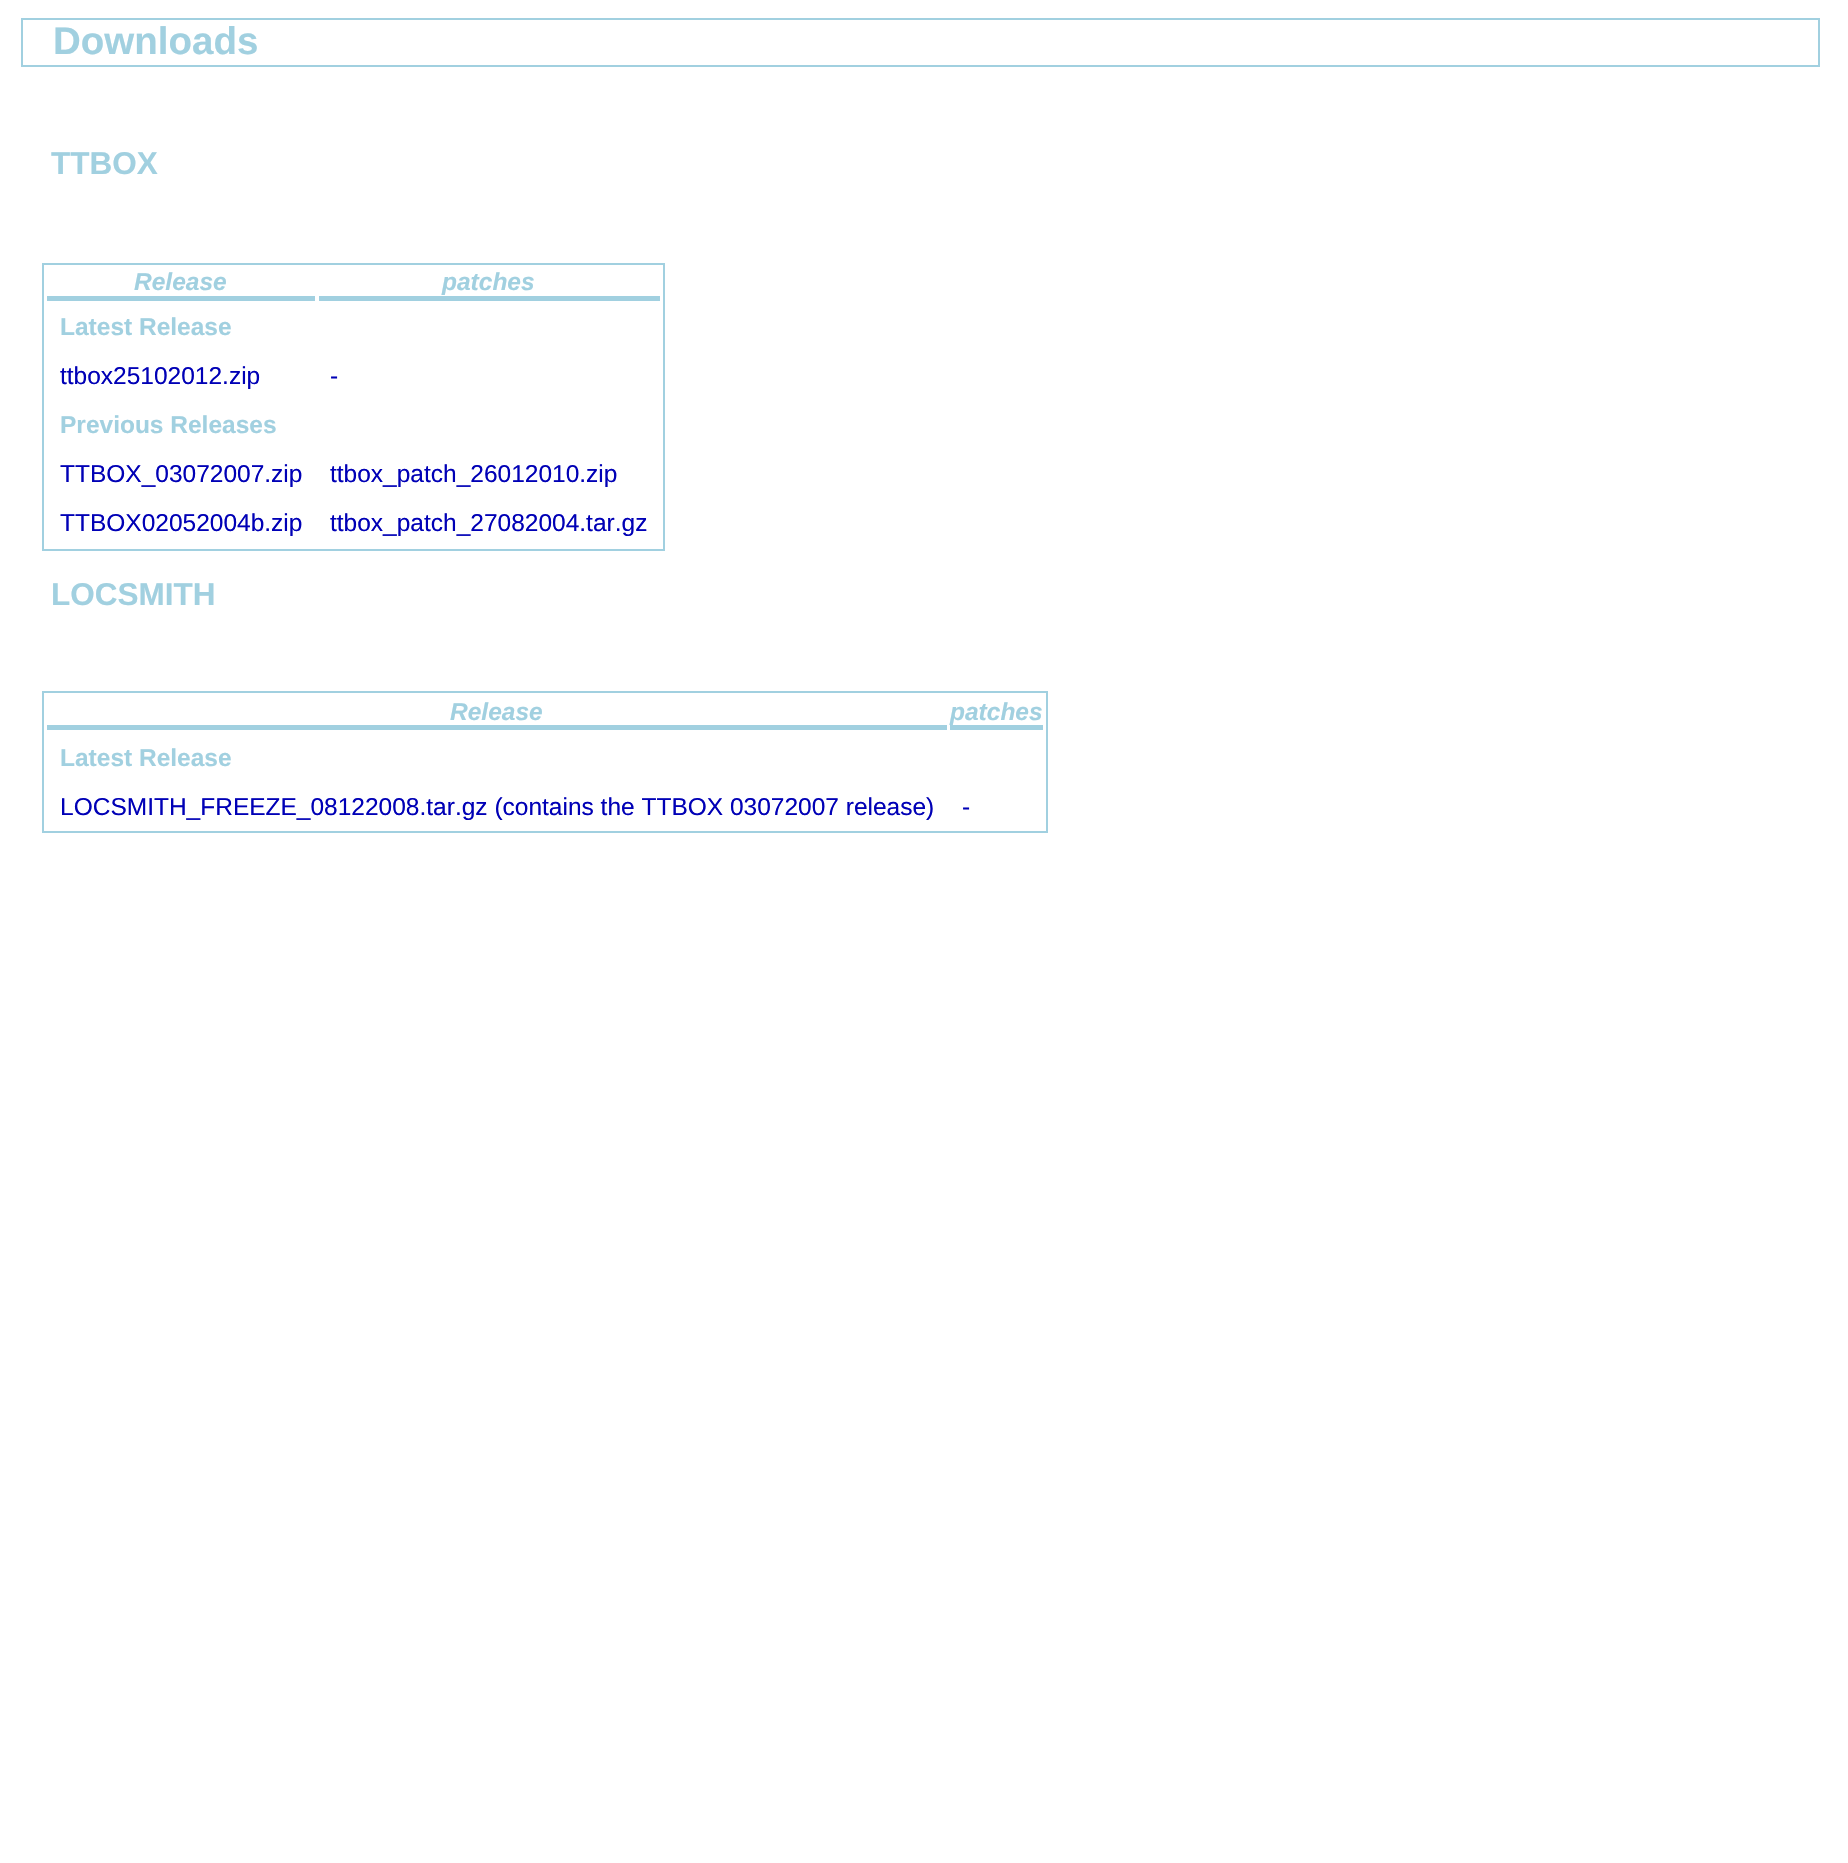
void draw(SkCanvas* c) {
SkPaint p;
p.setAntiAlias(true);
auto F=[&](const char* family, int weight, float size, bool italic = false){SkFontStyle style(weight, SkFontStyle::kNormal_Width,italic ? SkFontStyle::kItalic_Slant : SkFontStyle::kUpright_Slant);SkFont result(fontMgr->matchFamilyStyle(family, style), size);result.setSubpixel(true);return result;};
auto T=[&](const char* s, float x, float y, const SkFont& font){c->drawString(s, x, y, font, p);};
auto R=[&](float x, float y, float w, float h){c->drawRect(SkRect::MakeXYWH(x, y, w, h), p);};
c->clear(0xffffffff);
p.setStroke(true);
p.setStrokeWidth(2);
p.setColor(0xffa1d0e0);
c->drawRect(SkRect::MakeXYWH(22,19,1797,47),p);
auto f1 = F("Liberation Sans",700,38.5);
p.setStroke(false);
T("Downloads",53,54,f1);
auto f2 = F("Liberation Sans",700,31.5);
T("TTBOX",51,174,f2);
p.setStroke(true);
c->drawRect(SkRect::MakeXYWH(43,264,621,286),p);
p.setStroke(false);
R(47,296,268,5);
auto f3 = F("Liberation Sans",700,24.5,true);
T("Release",134,290,f3);
R(319,296,341,5);
T("patches",442,290,f3);
auto f4 = F("Liberation Sans",700,24.5);
T("Latest Release",60,335,f4);
auto f5 = F("Liberation Sans",400,24.5);
p.setColor(0xff0000b6);
T("ttbox25102012.zip",60,384,f5);
T("-",330,384,f5);
p.setColor(0xffa1d0e0);
T("Previous Releases",60,433,f4);
p.setColor(0xff0000b6);
T("TTBOX_03072007.zip",60,482,f5);
T("ttbox_patch_26012010.zip",330,482,f5);
T("TTBOX02052004b.zip",60,531,f5);
T("ttbox_patch_27082004.tar.gz",330,531,f5);
p.setColor(0xffa1d0e0);
T("LOCSMITH",51,605,f2);
p.setStroke(true);
c->drawRect(SkRect::MakeXYWH(43,692,1004,140),p);
p.setStroke(false);
R(47,725,900,5);
T("Release",450,720,f3);
R(950,725,93,5);
T("patches",950,720,f3);
T("Latest Release",60,766,f4);
p.setColor(0xff0000b6);
T("LOCSMITH_FREEZE_08122008.tar.gz (contains the TTBOX 03072007 release)",60,815,f5);
T("-",962,815,f5);
}
